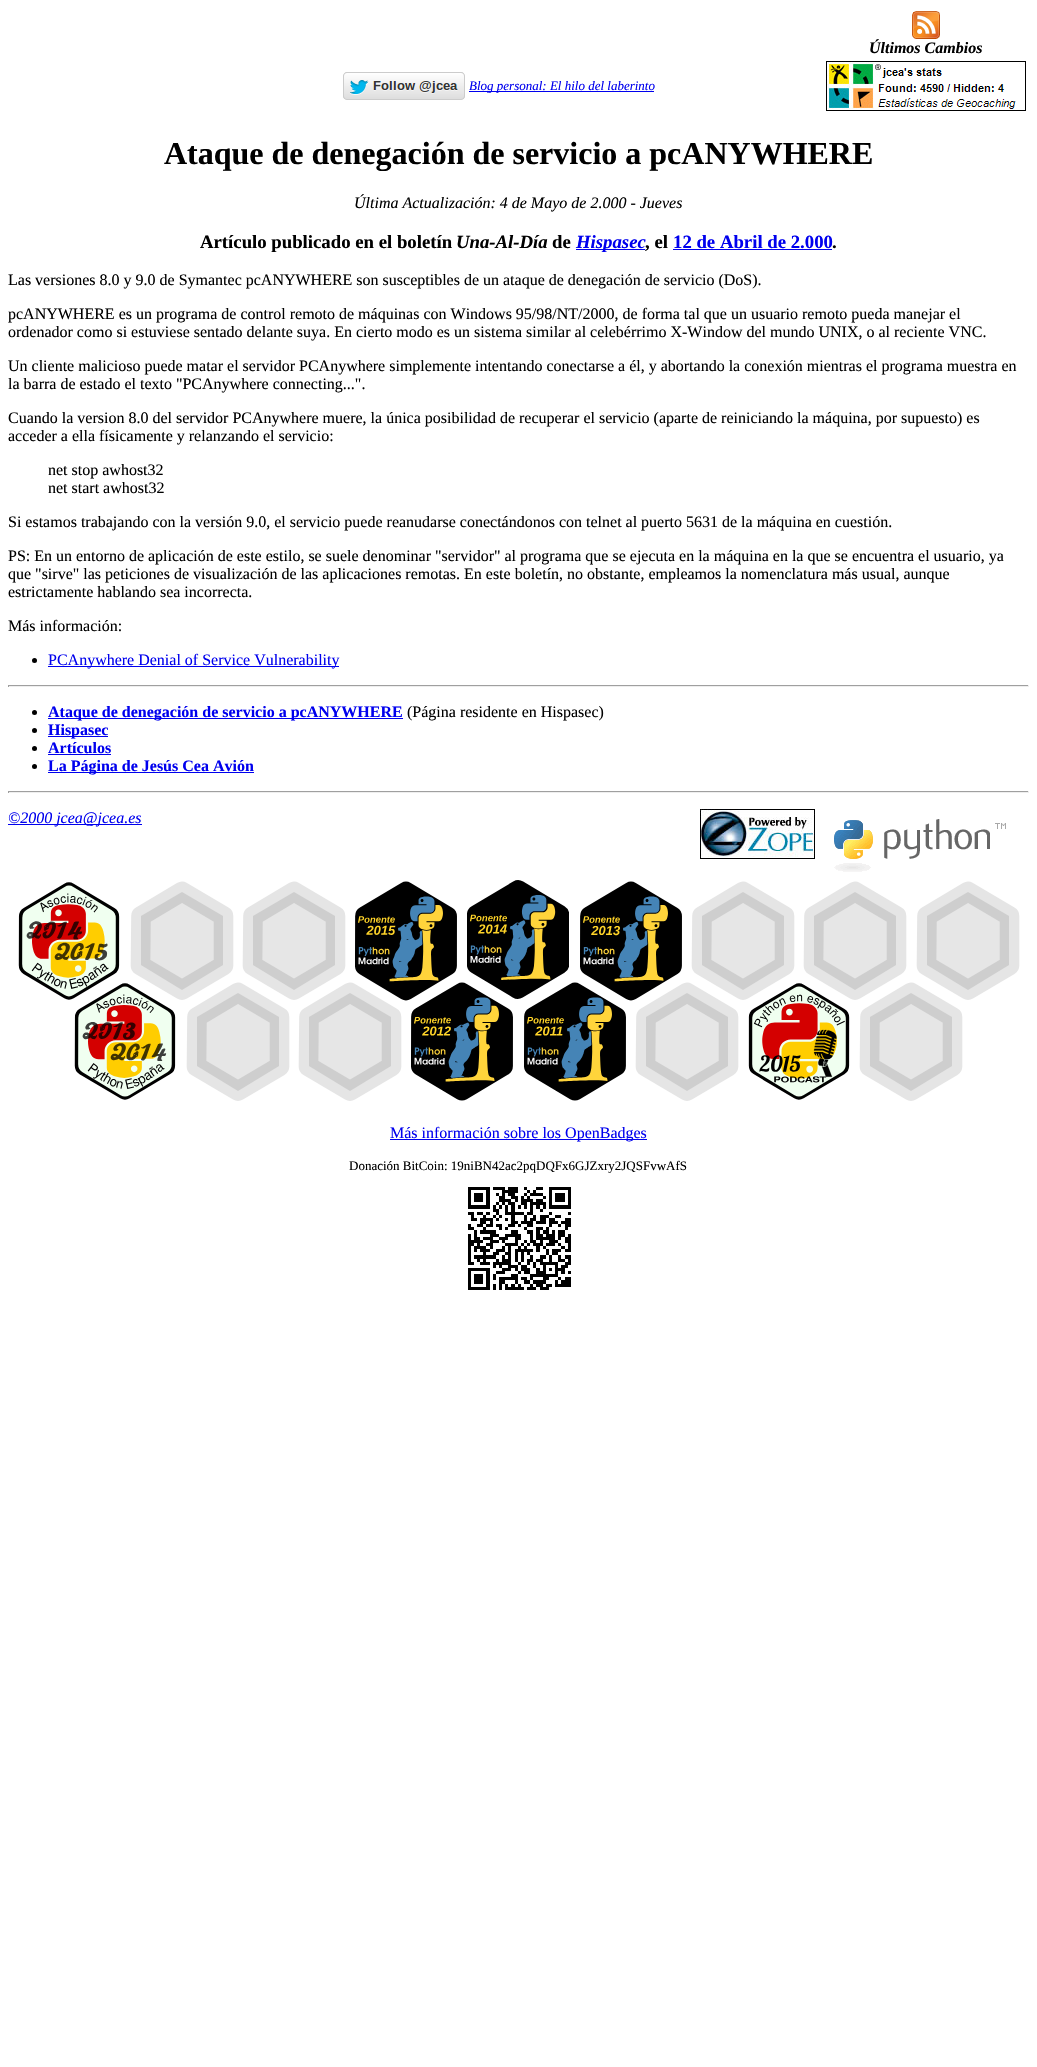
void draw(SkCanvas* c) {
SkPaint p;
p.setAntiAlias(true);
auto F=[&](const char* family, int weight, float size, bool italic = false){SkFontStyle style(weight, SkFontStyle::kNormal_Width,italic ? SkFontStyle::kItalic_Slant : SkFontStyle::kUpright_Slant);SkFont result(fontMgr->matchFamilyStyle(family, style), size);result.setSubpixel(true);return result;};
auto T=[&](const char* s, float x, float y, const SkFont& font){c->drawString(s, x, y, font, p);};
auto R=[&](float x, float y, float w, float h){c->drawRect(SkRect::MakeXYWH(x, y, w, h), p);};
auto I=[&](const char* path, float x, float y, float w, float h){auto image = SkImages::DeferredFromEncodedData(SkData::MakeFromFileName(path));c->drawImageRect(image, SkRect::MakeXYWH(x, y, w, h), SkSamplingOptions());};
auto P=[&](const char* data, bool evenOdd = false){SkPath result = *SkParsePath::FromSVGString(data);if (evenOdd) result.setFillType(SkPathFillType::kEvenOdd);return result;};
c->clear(0xffffffff);
I("1.png",912,11,28,28);
auto f1 = F("Liberation Serif",700,16,true);
p.setColor(0xff000000);
T("Últimos Cambios",869,53,f1);
I("2.png",343,72,122,28);
p.setColor(0xff0000ee);
R(469,91,185,1);
auto f2 = F("Liberation Serif",400,13,true);
T("Blog personal: El hilo del laberinto",469,90,f2);
I("3.png",826,61,200,50);
auto f3 = F("Liberation Serif",700,32);
p.setColor(0xff000000);
T("Ataque de denegación de servicio a pcANYWHERE",164,164,f3);
auto f4 = F("Liberation Serif",400,16,true);
T("Última Actualización: 4 de Mayo de 2.000 - Jueves",354,208,f4);
auto f5 = F("Liberation Serif",700,18.75);
T("Artículo publicado en el boletín",200,248,f5);
auto f6 = F("Liberation Serif",700,18.75,true);
T("Una-Al-Día",456,248,f6);
T("de",552,248,f5);
p.setColor(0xff0000ee);
R(576,249,69,1);
T("Hispasec",576,248,f6);
p.setColor(0xff000000);
T(", el",645,248,f5);
p.setColor(0xff0000ee);
T("12 de Abril de 2.000",673,248,f5);
R(673,249,159,1);
p.setColor(0xff000000);
T(".",832,248,f5);
auto f7 = F("Liberation Serif",400,16);
T("Las versiones 8.0 y 9.0 de Symantec pcANYWHERE son susceptibles de un ataque de denegación de servicio (DoS).",8,285,f7);
T("pcANYWHERE es un programa de control remoto de máquinas con Windows 95/98/NT/2000, de forma tal que un usuario remoto pueda manejar el",8,319,f7);
T("ordenador como si estuviese sentado delante suya. En cierto modo es un sistema similar al celebérrimo X-Window del mundo UNIX, o al reciente VNC.",8,337,f7);
T("Un cliente malicioso puede matar el servidor PCAnywhere simplemente intentando conectarse a él, y abortando la conexión mientras el programa muestra en",8,371,f7);
T("la barra de estado el texto \"PCAnywhere connecting...\".",8,389,f7);
T("Cuando la version 8.0 del servidor PCAnywhere muere, la única posibilidad de recuperar el servicio (aparte de reiniciando la máquina, por supuesto) es",8,423,f7);
T("acceder a ella físicamente y relanzando el servicio:",8,441,f7);
T("net stop awhost32",48,475,f7);
T("net start awhost32",48,493,f7);
T("Si estamos trabajando con la versión 9.0, el servicio puede reanudarse conectándonos con telnet al puerto 5631 de la máquina en cuestión.",8,527,f7);
T("PS: En un entorno de aplicación de este estilo, se suele denominar \"servidor\" al programa que se ejecuta en la máquina en la que se encuentra el usuario, ya",8,561,f7);
T("que \"sirve\" las peticiones de visualización de las aplicaciones remotas. En este boletín, no obstante, empleamos la nomenclatura más usual, aunque",8,579,f7);
T("estrictamente hablando sea incorrecta.",8,597,f7);
T("Más información:",8,631,f7);
c->drawCircle(34.5,660.5,2.5,p);
p.setColor(0xff0000ee);
R(48,666,291,1);
T("PCAnywhere Denial of Service Vulnerability",48,665,f7);
p.setColor(0xff9f9f9f);
R(8,685,1021,1);
p.setColor(0xffeeeeee);
R(1028,685,1,2);
R(8,686,1021,1);
p.setColor(0xff9f9f9f);
R(8,685,1,2);
p.setColor(0xff000000);
c->drawCircle(34.5,712.5,2.5,p);
p.setColor(0xff0000ee);
R(48,718,355,1);
auto f8 = F("Liberation Serif",700,16);
T("Ataque de denegación de servicio a pcANYWHERE",48,717,f8);
p.setColor(0xff000000);
T("(Página residente en Hispasec)",407,717,f7);
c->drawCircle(34.5,730.5,2.5,p);
p.setColor(0xff0000ee);
R(48,736,60,1);
T("Hispasec",48,735,f8);
p.setColor(0xff000000);
c->drawCircle(34.5,748.5,2.5,p);
p.setColor(0xff0000ee);
T("Artículos",48,753,f8);
R(48,754,63,1);
p.setColor(0xff000000);
c->drawCircle(34.5,766.5,2.5,p);
p.setColor(0xff0000ee);
R(48,772,206,1);
T("La Página de Jesús Cea Avión",48,771,f8);
p.setColor(0xff9f9f9f);
R(8,791,1021,1);
p.setColor(0xffeeeeee);
R(1028,791,1,2);
R(8,792,1021,1);
p.setColor(0xff9f9f9f);
R(8,791,1,2);
p.setColor(0xff0000ee);
R(8,824,134,1);
T("©2000 jcea@jcea.es",8,823,f4);
I("4.png",700,809,115,50);
I("5.png",834,819,172,53);
I("6.png",18,882,102,118);
p.setColor(0xffe6e6e6);
c->drawPath(P("M141 916l41-24l41 24v49l-41 25l-41-25z"),p);
p.setStroke(true);
p.setStrokeWidth(19.6);
p.setStrokeCap(SkPaint::kRound_Cap);
p.setStrokeJoin(SkPaint::kRound_Join);
p.setColor(0x1a000000);
c->drawPath(P("M141 916l41-24.5l41.5 24.5v49.5l-41.5 24.5l-41.5-24.5z"),p);
p.setStroke(false);
p.setColor(0xffe6e6e6);
c->drawPath(P("M253 916l41-24l41 24v49l-41 25l-41-25z"),p);
p.setStroke(true);
p.setColor(0x1a000000);
c->drawPath(P("M253 916l41-24.5l41.5 24.5v49.5l-41.5 24.5l-41.5-24.5z"),p);
I("7.png",355,881,102,120);
I("8.png",467,880,102,119);
I("9.png",580,881,102,120);
p.setStroke(false);
p.setColor(0xffe6e6e6);
c->drawPath(P("M702 916l41-24l41 24v49l-41 25l-41-25z"),p);
p.setStroke(true);
p.setColor(0x1a000000);
c->drawPath(P("M702 916l41-24.5l41.5 24.5v49.5l-41.5 24.5l-41.5-24.5z"),p);
p.setStroke(false);
p.setColor(0xffe6e6e6);
c->drawPath(P("M814 916l41-24l41 24v49l-41 25l-41-25z"),p);
p.setStroke(true);
p.setColor(0x1a000000);
c->drawPath(P("M814 916l41-24.5l41.5 24.5v49.5l-41.5 24.5l-41.5-24.5z"),p);
p.setStroke(false);
p.setColor(0xffe6e6e6);
c->drawPath(P("M927 916l41-24l41 24v49l-41 25l-41-25z"),p);
p.setStroke(true);
p.setColor(0x1a000000);
c->drawPath(P("M927 916l41-24.5l41.5 24.5v49.5l-41.5 24.5l-41.5-24.5z"),p);
I("10.png",74,983,102,117);
p.setStroke(false);
p.setColor(0xffe6e6e6);
c->drawPath(P("M197 1017l41-24l41 24v49l-41 25l-41-25z"),p);
p.setStroke(true);
p.setColor(0x1a000000);
c->drawPath(P("M197 1017l41-24.5l41.5 24.5v49.5l-41.5 24.5l-41.5-24.5z"),p);
p.setStroke(false);
p.setColor(0xffe6e6e6);
c->drawPath(P("M309 1017l41-24l41 24v49l-41 25l-41-25z"),p);
p.setStroke(true);
p.setColor(0x1a000000);
c->drawPath(P("M309 1017l41-24.5l41.5 24.5v49.5l-41.5 24.5l-41.5-24.5z"),p);
I("11.png",411,982,102,119);
I("12.png",524,982,102,119);
p.setStroke(false);
p.setColor(0xffe6e6e6);
c->drawPath(P("M646 1017l41-24l41 24v49l-41 25l-41-25z"),p);
p.setStroke(true);
p.setColor(0x1a000000);
c->drawPath(P("M646 1017l41-24.5l41.5 24.5v49.5l-41.5 24.5l-41.5-24.5z"),p);
I("13.png",748,983,102,117);
p.setStroke(false);
p.setColor(0xffe6e6e6);
c->drawPath(P("M870 1017l41-24l41 24v49l-41 25l-41-25z"),p);
p.setStroke(true);
p.setColor(0x1a000000);
c->drawPath(P("M870 1017l41-24.5l41.5 24.5v49.5l-41.5 24.5l-41.5-24.5z"),p);
p.setStroke(false);
p.setColor(0xff0000ee);
R(390,1139,257,1);
T("Más información sobre los OpenBadges",390,1138,f7);
auto f9 = F("Liberation Serif",400,13);
p.setColor(0xff000000);
T("Donación BitCoin: 19niBN42ac2pqDQFx6GJZxry2JQSFvwAfS",349,1170,f9);
I("14.png",468,1187,103,103);
}
